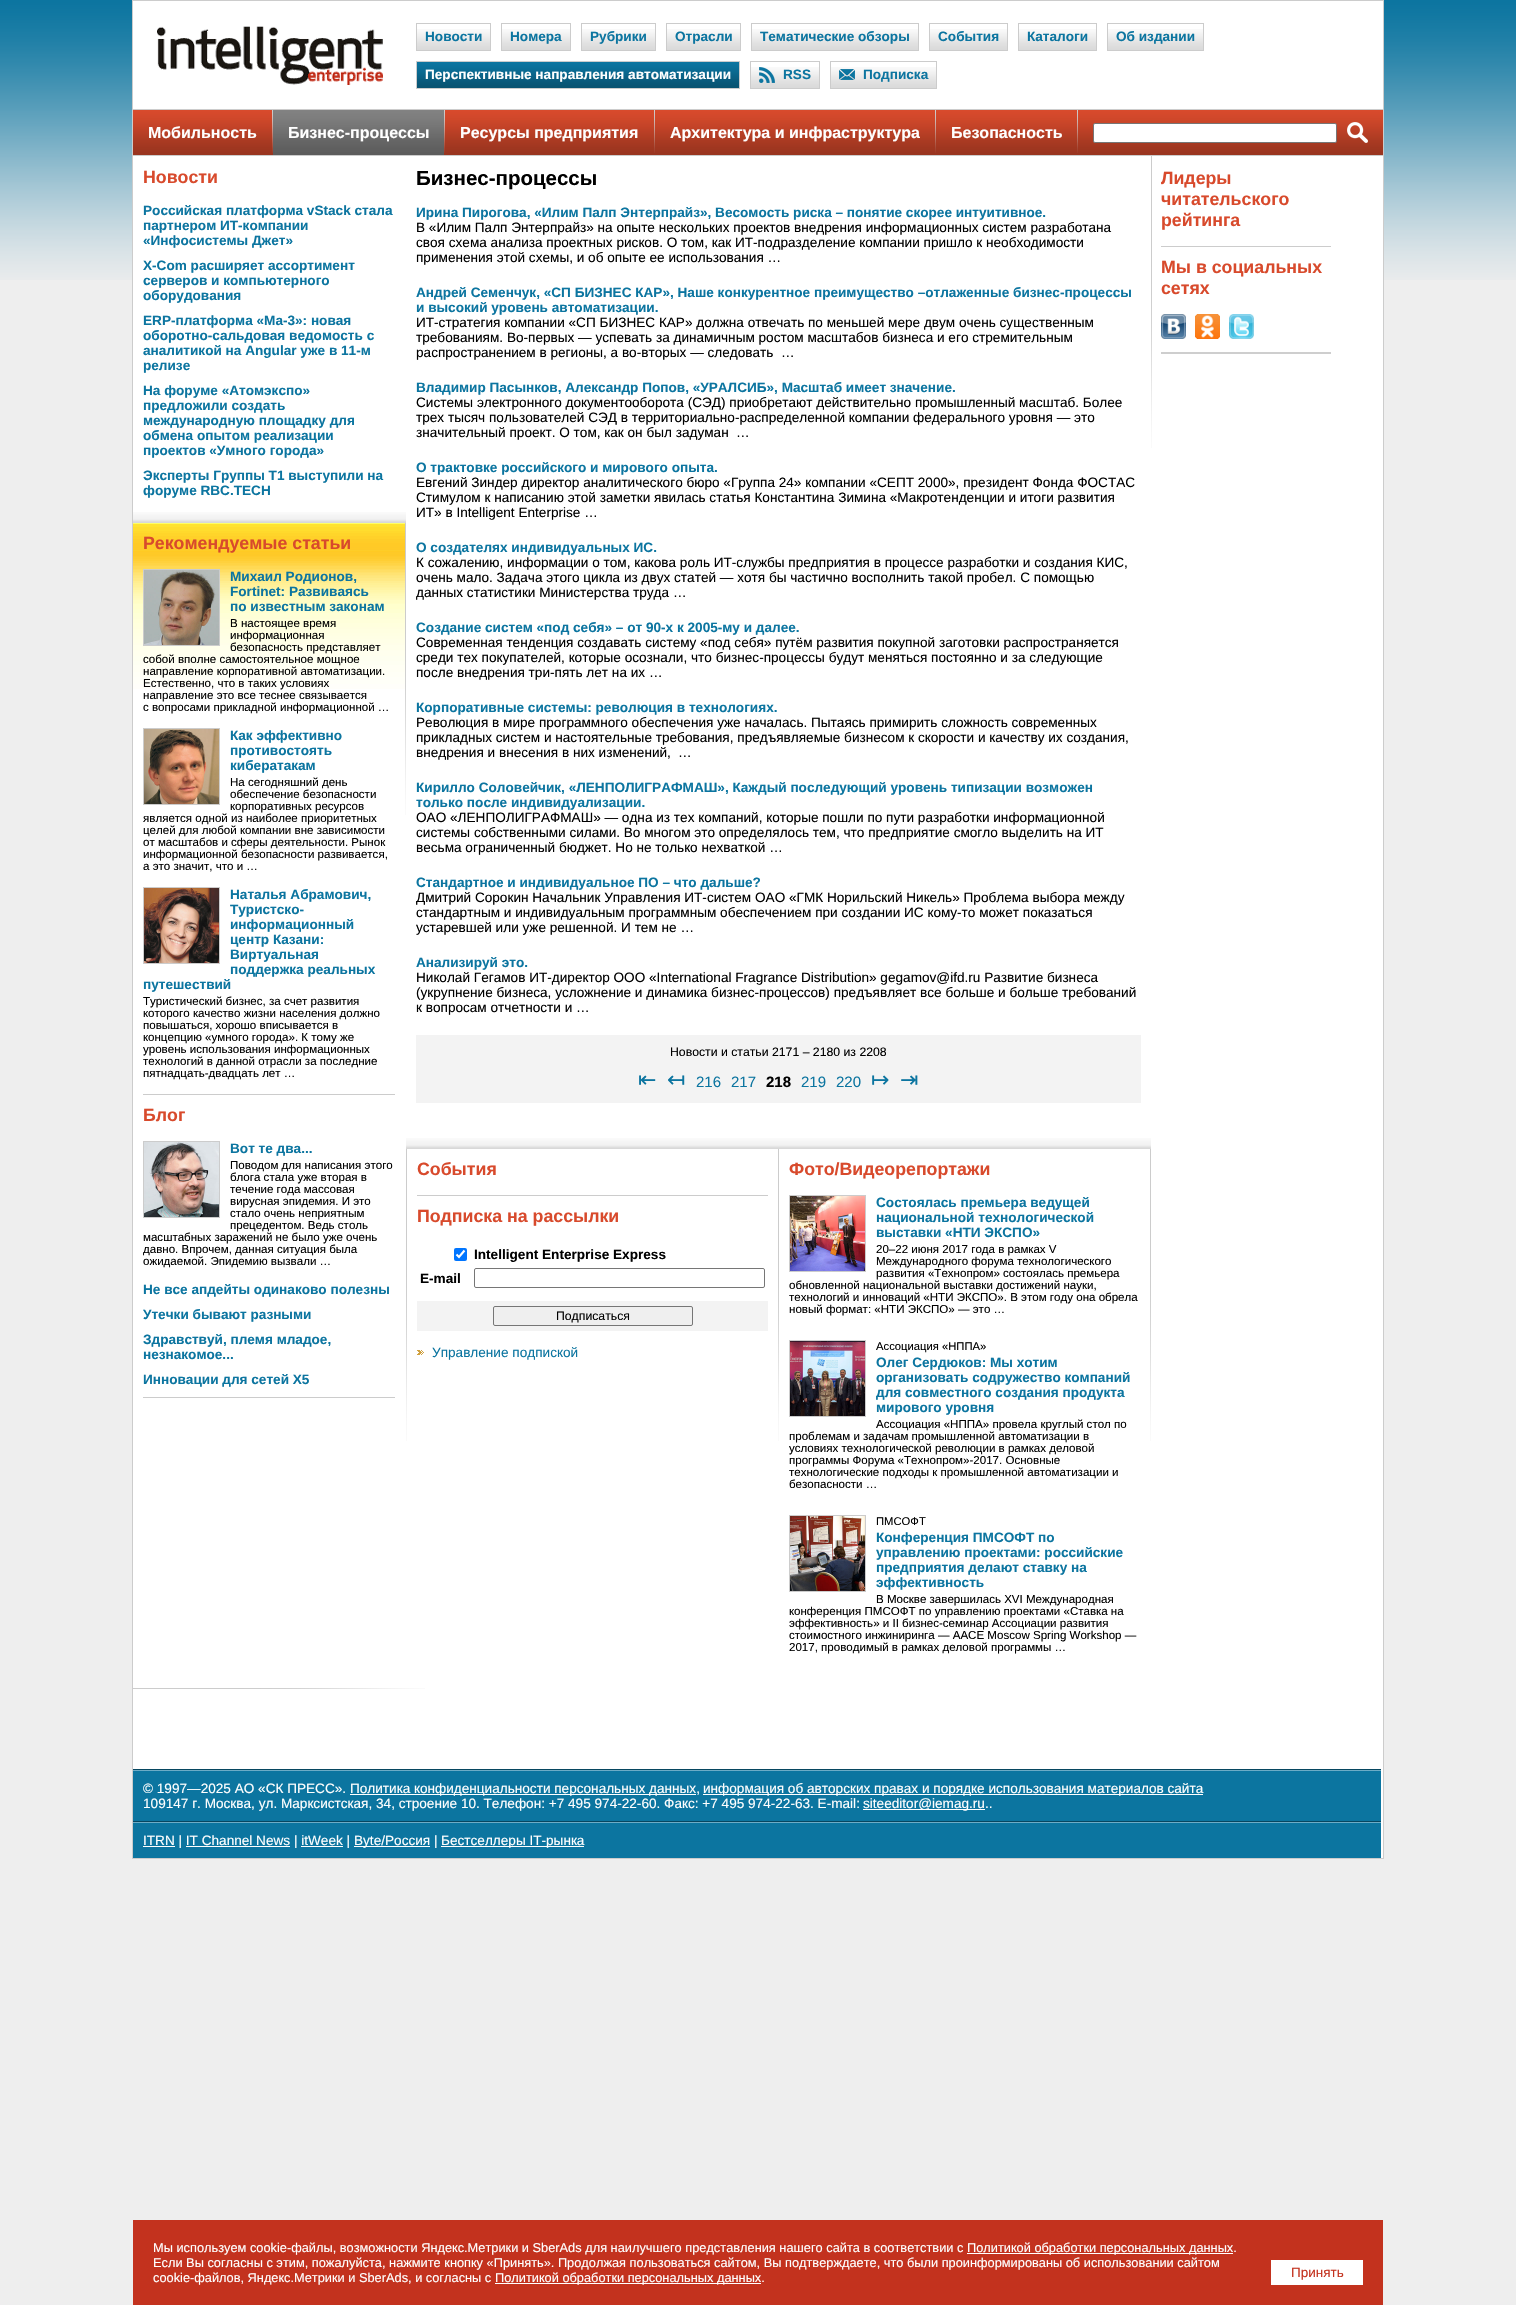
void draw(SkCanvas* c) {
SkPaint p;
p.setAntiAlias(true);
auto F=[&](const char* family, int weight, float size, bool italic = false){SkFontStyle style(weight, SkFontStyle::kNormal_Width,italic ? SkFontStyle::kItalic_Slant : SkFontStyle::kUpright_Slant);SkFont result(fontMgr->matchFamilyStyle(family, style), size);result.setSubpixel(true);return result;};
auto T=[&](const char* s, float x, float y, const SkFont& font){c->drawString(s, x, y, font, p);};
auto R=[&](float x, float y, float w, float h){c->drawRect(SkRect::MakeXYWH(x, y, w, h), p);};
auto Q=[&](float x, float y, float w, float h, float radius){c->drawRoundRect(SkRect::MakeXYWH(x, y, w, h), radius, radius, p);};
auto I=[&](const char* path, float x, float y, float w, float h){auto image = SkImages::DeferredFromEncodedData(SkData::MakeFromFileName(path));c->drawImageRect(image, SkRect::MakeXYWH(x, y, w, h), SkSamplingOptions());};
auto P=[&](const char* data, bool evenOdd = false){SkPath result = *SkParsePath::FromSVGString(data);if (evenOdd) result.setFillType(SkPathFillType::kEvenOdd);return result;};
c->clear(0xffeeeeee);
I("1.png",0,0,1516,280);
p.setColor(0xffffffff);
c->drawRect(SkRect::MakeXYWH(132.5,.5,1251,1858),p);
p.setStroke(true);
p.setStrokeWidth(1);
p.setColor(0xffcccccc);
c->drawRect(SkRect::MakeXYWH(132.5,.5,1251,1858),p);
I("2.png",157,26,226,59);
I("3.png",417,29,73,21);
c->drawRect(SkRect::MakeXYWH(416.5,23.5,74,27),p);
auto f1 = F("Liberation Sans",700,13.6);
p.setStroke(false);
p.setColor(0xff0c75a0);
T("Новости",425,41,f1);
I("4.png",502,29,68,21);
p.setStroke(true);
p.setColor(0xffcccccc);
c->drawRect(SkRect::MakeXYWH(501.5,23.5,69,27),p);
p.setStroke(false);
p.setColor(0xff0c75a0);
T("Номера",510,41,f1);
I("3.png",582,29,73,21);
p.setStroke(true);
p.setColor(0xffcccccc);
c->drawRect(SkRect::MakeXYWH(581.5,23.5,74,27),p);
p.setStroke(false);
p.setColor(0xff0c75a0);
T("Рубрики",590,41,f1);
I("3.png",667,29,73,21);
p.setStroke(true);
p.setColor(0xffcccccc);
c->drawRect(SkRect::MakeXYWH(666.5,23.5,74,27),p);
p.setStroke(false);
p.setColor(0xff0c75a0);
T("Отрасли",675,41,f1);
I("5.png",752,29,166,21);
p.setStroke(true);
p.setColor(0xffcccccc);
c->drawRect(SkRect::MakeXYWH(751.5,23.5,167,27),p);
p.setStroke(false);
p.setColor(0xff0c75a0);
T("Тематические обзоры",760,41,f1);
I("6.png",930,29,77,21);
p.setStroke(true);
p.setColor(0xffcccccc);
c->drawRect(SkRect::MakeXYWH(929.5,23.5,78,27),p);
p.setStroke(false);
p.setColor(0xff0c75a0);
T("События",938,41,f1);
I("6.png",1019,29,77,21);
p.setStroke(true);
p.setColor(0xffcccccc);
c->drawRect(SkRect::MakeXYWH(1018.5,23.5,78,27),p);
p.setStroke(false);
p.setColor(0xff0c75a0);
T("Каталоги",1027,41,f1);
I("7.png",1108,29,95,21);
p.setStroke(true);
p.setColor(0xffcccccc);
c->drawRect(SkRect::MakeXYWH(1107.5,23.5,96,27),p);
p.setStroke(false);
p.setColor(0xff0c75a0);
T("Об издании",1116,41,f1);
I("8.png",417,62,322,26);
p.setStroke(true);
p.setColor(0xffcccccc);
c->drawRect(SkRect::MakeXYWH(416.5,61.5,323,27),p);
p.setStroke(false);
p.setColor(0xffffffff);
T("Перспективные направления автоматизации",425,79,f1);
I("4.png",751,67,68,21);
p.setStroke(true);
p.setColor(0xffcccccc);
c->drawRect(SkRect::MakeXYWH(750.5,61.5,69,27),p);
I("9.png",759,67,16,16);
p.setStroke(false);
p.setColor(0xff0c75a0);
T("RSS",783,79,f1);
I("10.png",831,67,105,21);
p.setStroke(true);
p.setColor(0xffcccccc);
c->drawRect(SkRect::MakeXYWH(830.5,61.5,106,27),p);
I("11.png",839,69,16,11);
p.setStroke(false);
p.setColor(0xff0c75a0);
T("Подписка",863,79,f1);
I("12.png",133,109,1250,47);
auto f2 = F("Liberation Sans",700,16);
p.setColor(0xffffffff);
T("Мобильность",148,138,f2);
I("13.png",272,110,1,43);
I("14.png",273,110,171,45);
T("Бизнес-процессы",288,138,f2);
I("13.png",444,110,1,43);
T("Ресурсы предприятия",460,138,f2);
I("13.png",654,110,1,43);
T("Архитектура и инфраструктура",670,138,f2);
I("13.png",935,110,1,43);
T("Безопасность",951,138,f2);
I("13.png",1077,110,1,43);
c->drawRoundRect(SkRect::MakeXYWH(1093.5,123.5,243,19),1.5,1.5,p);
p.setStroke(true);
p.setColor(0xff767676);
c->drawRoundRect(SkRect::MakeXYWH(1093.5,123.5,243,19),1.5,1.5,p);
I("15.png",1347,122,21,21);
auto f3 = F("Liberation Sans",700,17.75);
p.setStroke(false);
p.setColor(0xffd84a2c);
T("Новости",143,183,f3);
p.setColor(0xff0c75a0);
T("Российская платформа vStack стала",143,215,f1);
T("партнером ИТ-компании",143,230,f1);
T("«Инфосистемы Джет»",143,245,f1);
T("X-Com расширяет ассортимент",143,270,f1);
T("серверов и компьютерного",143,285,f1);
T("оборудования",143,300,f1);
T("ERP-платформа «Ма-3»: новая",143,325,f1);
T("оборотно-сальдовая ведомость с",143,340,f1);
T("аналитикой на Angular уже в 11-м",143,355,f1);
T("релизе",143,370,f1);
T("На форуме «Атомэкспо»",143,395,f1);
T("предложили создать",143,410,f1);
T("международную площадку для",143,425,f1);
T("обмена опытом реализации",143,440,f1);
T("проектов «Умного города»",143,455,f1);
T("Эксперты Группы Т1 выступили на",143,480,f1);
T("форуме RBC.TECH",143,495,f1);
I("16.png",133,512,273,11);
I("17.png",133,523,272,166);
p.setColor(0xffd84a2c);
T("Рекомендуемые статьи",143,549,f3);
p.setStroke(true);
p.setColor(0xffcccccc);
c->drawRect(SkRect::MakeXYWH(143.5,569.5,76,76),p);
I("18.png",144,570,75,75);
p.setStroke(false);
p.setColor(0xff0c75a0);
T("Михаил Родионов,",230,581,f1);
T("Fortinet: Развиваясь",230,596,f1);
T("по известным законам",230,611,f1);
auto f4 = F("Liberation Sans",400,11.55);
p.setColor(0xff000000);
T("В настоящее время",230,627,f4);
T("информационная",230,639,f4);
T("безопасность представляет",230,651,f4);
T("собой вполне самостоятельное мощное",143,663,f4);
T("направление корпоративной автоматизации.",143,675,f4);
T("Естественно, что в таких условиях",143,687,f4);
T("направление это все теснее связывается",143,699,f4);
T("с вопросами прикладной информационной …",143,711,f4);
p.setStroke(true);
p.setColor(0xffcccccc);
c->drawRect(SkRect::MakeXYWH(143.5,728.5,76,76),p);
I("19.png",144,729,75,75);
p.setStroke(false);
p.setColor(0xff0c75a0);
T("Как эффективно",230,740,f1);
T("противостоять",230,755,f1);
T("кибератакам",230,770,f1);
p.setColor(0xff000000);
T("На сегодняшний день",230,786,f4);
T("обеспечение безопасности",230,798,f4);
T("корпоративных ресурсов",230,810,f4);
T("является одной из наиболее приоритетных",143,822,f4);
T("целей для любой компании вне зависимости",143,834,f4);
T("от масштабов и сферы деятельности. Рынок",143,846,f4);
T("информационной безопасности развивается,",143,858,f4);
T("а это значит, что и …",143,870,f4);
p.setStroke(true);
p.setColor(0xffcccccc);
c->drawRect(SkRect::MakeXYWH(143.5,887.5,76,76),p);
I("20.png",144,888,75,75);
p.setStroke(false);
p.setColor(0xff0c75a0);
T("Наталья Абрамович,",230,899,f1);
T("Туристско-",230,914,f1);
T("информационный",230,929,f1);
T("центр Казани:",230,944,f1);
T("Виртуальная",230,959,f1);
T("поддержка реальных",230,974,f1);
T("путешествий",143,989,f1);
p.setColor(0xff000000);
T("Туристический бизнес, за счет развития",143,1005,f4);
T("которого качество жизни населения должно",143,1017,f4);
T("повышаться, хорошо вписывается в",143,1029,f4);
T("концепцию «умного города». К тому же",143,1041,f4);
T("уровень использования информационных",143,1053,f4);
T("технологий в данной отрасли за последние",143,1065,f4);
T("пятнадцать-двадцать лет …",143,1077,f4);
p.setColor(0xffcccccc);
R(143,1094,252,1);
p.setColor(0xffd84a2c);
T("Блог",143,1121,f3);
p.setStroke(true);
p.setColor(0xffcccccc);
c->drawRect(SkRect::MakeXYWH(143.5,1141.5,76,76),p);
I("21.png",144,1142,75,75);
p.setStroke(false);
p.setColor(0xff0c75a0);
T("Вот те два...",230,1153,f1);
p.setColor(0xff000000);
T("Поводом для написания этого",230,1169,f4);
T("блога стала уже вторая в",230,1181,f4);
T("течение года массовая",230,1193,f4);
T("вирусная эпидемия. И это",230,1205,f4);
T("стало очень неприятным",230,1217,f4);
T("прецедентом. Ведь столь",230,1229,f4);
T("масштабных заражений не было уже очень",143,1241,f4);
T("давно. Впрочем, данная ситуация была",143,1253,f4);
T("ожидаемой. Эпидемию вызвали …",143,1265,f4);
p.setColor(0xff0c75a0);
T("Не все апдейты одинаково полезны",143,1294,f1);
T("Утечки бывают разными",143,1319,f1);
T("Здравствуй, племя младое,",143,1344,f1);
T("незнакомое...",143,1359,f1);
T("Инновации для сетей X5",143,1384,f1);
p.setColor(0xffcccccc);
R(143,1397,252,1);
I("22.png",405,523,1,292);
auto f5 = F("Liberation Sans",700,20.5);
p.setColor(0xff000000);
T("Бизнес-процессы",416,185,f5);
p.setColor(0xff0c75a0);
T("Ирина Пирогова, «Илим Палп Энтерпрайз», Весомость риска – понятие скорее интуитивное.",416,217,f1);
auto f6 = F("Liberation Sans",400,13.6);
p.setColor(0xff000000);
T("В «Илим Палп Энтерпрайз» на опыте нескольких проектов внедрения информационных систем разработана",416,232,f6);
T("своя схема анализа проектных рисков. О том, как ИТ-подразделение компании пришло к необходимости",416,247,f6);
T("применения этой схемы, и об опыте ее использования …",416,262,f6);
p.setColor(0xff0c75a0);
T("Андрей Семенчук, «СП БИЗНЕС КАР», Наше конкурентное преимущество –отлаженные бизнес-процессы",416,297,f1);
T("и высокий уровень автоматизации.",416,312,f1);
p.setColor(0xff000000);
T("ИТ-стратегия компании «СП БИЗНЕС КАР» должна отвечать по меньшей мере двум очень существенным",416,327,f6);
T("требованиям. Во-первых — успевать за динамичным ростом масштабов бизнеса и его стремительным",416,342,f6);
T("распространением в регионы, а во-вторых — следовать",416,357,f6);
T("…",781,357,f6);
p.setColor(0xff0c75a0);
T("Владимир Пасынков, Александр Попов, «УРАЛСИБ», Масштаб имеет значение.",416,392,f1);
p.setColor(0xff000000);
T("Системы электронного документооборота (СЭД) приобретают действительно промышленный масштаб. Более",416,407,f6);
T("трех тысяч пользователей СЭД в территориально-распределенной компании федерального уровня — это",416,422,f6);
T("значительный проект. О том, как он был задуман",416,437,f6);
T("…",736,437,f6);
p.setColor(0xff0c75a0);
T("О трактовке российского и мирового опыта.",416,472,f1);
p.setColor(0xff000000);
T("Евгений Зиндер директор аналитического бюро «Группа 24» компании «СЕПТ 2000», президент Фонда ФОСТАС",416,487,f6);
T("Стимулом к написанию этой заметки явилась статья Константина Зимина «Макротенденции и итоги развития",416,502,f6);
T("ИТ» в Intelligent Enterprise …",416,517,f6);
p.setColor(0xff0c75a0);
T("О создателях индивидуальных ИС.",416,552,f1);
p.setColor(0xff000000);
T("К сожалению, информации о том, какова роль ИТ-службы предприятия в процессе разработки и создания КИС,",416,567,f6);
T("очень мало. Задача этого цикла из двух статей — хотя бы частично восполнить такой пробел. С помощью",416,582,f6);
T("данных статистики Министерства труда …",416,597,f6);
p.setColor(0xff0c75a0);
T("Создание систем «под себя» – от 90-х к 2005-му и далее.",416,632,f1);
p.setColor(0xff000000);
T("Современная тенденция создавать систему «под себя» путём развития покупной заготовки распространяется",416,647,f6);
T("среди тех покупателей, которые осознали, что бизнес-процессы будут меняться постоянно и за следующие",416,662,f6);
T("после внедрения три-пять лет на их …",416,677,f6);
p.setColor(0xff0c75a0);
T("Корпоративные системы: революция в технологиях.",416,712,f1);
p.setColor(0xff000000);
T("Революция в мире программного обеспечения уже началась. Пытаясь примирить сложность современных",416,727,f6);
T("прикладных систем и настоятельные требования, предъявляемые бизнесом к скорости и качеству их создания,",416,742,f6);
T("внедрения и внесения в них изменений,",416,757,f6);
T("…",678,757,f6);
p.setColor(0xff0c75a0);
T("Кирилло Соловейчик, «ЛЕНПОЛИГРАФМАШ», Каждый последующий уровень типизации возможен",416,792,f1);
T("только после индивидуализации.",416,807,f1);
p.setColor(0xff000000);
T("ОАО «ЛЕНПОЛИГРАФМАШ» — одна из тех компаний, которые пошли по пути разработки информационной",416,822,f6);
T("системы собственными силами. Во многом это определялось тем, что предприятие смогло выделить на ИТ",416,837,f6);
T("весьма ограниченный бюджет. Но не только нехваткой …",416,852,f6);
p.setColor(0xff0c75a0);
T("Стандартное и индивидуальное ПО – что дальше?",416,887,f1);
p.setColor(0xff000000);
T("Дмитрий Сорокин Начальник Управления ИТ-систем ОАО «ГМК Норильский Никель» Проблема выбора между",416,902,f6);
T("стандартным и индивидуальным программным обеспечением при создании ИС кому-то может показаться",416,917,f6);
T("устаревшей или уже решенной. И тем не …",416,932,f6);
p.setColor(0xff0c75a0);
T("Анализируй это.",416,967,f1);
p.setColor(0xff000000);
T("Николай Гегамов ИТ-директор OOO «International Fragrance Distribution» gegamov@ifd.ru Развитие бизнеса",416,982,f6);
T("(укрупнение бизнеса, усложнение и динамика бизнес-процессов) предъявляет все больше и больше требований",416,997,f6);
T("к вопросам отчетности и …",416,1012,f6);
p.setColor(0xfff3f3f3);
R(416,1035,725,68);
auto f7 = F("Liberation Sans",400,12.25);
p.setColor(0xff000000);
T("Новости и статьи 2171 – 2180 из 2208",670,1056,f7);
auto f8 = F("DejaVu Sans",400,22);
p.setColor(0xff0c75a0);
T("⇤",638,1087,f8);
T("↤",667,1087,f8);
auto f9 = F("Liberation Sans",400,15);
T("216",696,1087,f9);
T("217",731,1087,f9);
auto f10 = F("Liberation Sans",700,15);
p.setColor(0xff000000);
T("218",766,1087,f10);
p.setColor(0xff0c75a0);
T("219",801,1087,f9);
T("220",836,1087,f9);
T("↦",871,1087,f8);
T("⇥",900,1087,f8);
I("23.png",406,1138,745,11);
I("22.png",406,1149,1,292);
p.setColor(0xffd84a2c);
T("События",417,1175,f3);
p.setColor(0xffcccccc);
R(417,1195,351,1);
p.setColor(0xffd84a2c);
T("Подписка на рассылки",417,1222,f3);
p.setColor(0xff0075ff);
Q(454,1248,13,13,2);
p.setStroke(true);
p.setStrokeWidth(2.1);
p.setColor(0xffffffff);
c->drawPath(P("M456.5 1254.5l2.5 2.5l5.5-6.5"),p);
p.setStroke(false);
p.setColor(0xff000000);
T("Intelligent Enterprise Express",474,1259,f1);
T("E-mail",420,1283,f1);
p.setStroke(true);
p.setStrokeWidth(1);
p.setColor(0xff767676);
c->drawRoundRect(SkRect::MakeXYWH(474.5,1268.5,290,19),1.5,1.5,p);
p.setStroke(false);
p.setColor(0xfff3f3f3);
R(417,1301,351,30);
p.setColor(0xffefefef);
c->drawRoundRect(SkRect::MakeXYWH(493.5,1306.5,199,19),1.5,1.5,p);
p.setStroke(true);
p.setColor(0xff767676);
c->drawRoundRect(SkRect::MakeXYWH(493.5,1306.5,199,19),1.5,1.5,p);
p.setStroke(false);
p.setColor(0xff000000);
T("Подписаться",556,1320,f7);
I("24.png",417,1350,7,5);
p.setColor(0xff0c75a0);
T("Управление подпиской",432,1357,f6);
I("22.png",778,1149,1,292);
p.setColor(0xffd84a2c);
T("Фото/Видеорепортажи",789,1175,f3);
p.setStroke(true);
p.setColor(0xffcccccc);
c->drawRect(SkRect::MakeXYWH(789.5,1195.5,76,76),p);
I("25.png",790,1196,75,75);
p.setStroke(false);
p.setColor(0xff0c75a0);
T("Состоялась премьера ведущей",876,1207,f1);
T("национальной технологической",876,1222,f1);
T("выставки «НТИ ЭКСПО»",876,1237,f1);
p.setColor(0xff000000);
T("20–22 июня 2017 года в рамках V",876,1253,f4);
T("Международного форума технологического",876,1265,f4);
T("развития «Технопром» состоялась премьера",876,1277,f4);
T("обновленной национальной выставки достижений науки,",789,1289,f4);
T("технологий и инноваций «НТИ ЭКСПО». В этом году она обрела",789,1301,f4);
T("новый формат: «НТИ ЭКСПО» — это …",789,1313,f4);
p.setStroke(true);
p.setColor(0xffcccccc);
c->drawRect(SkRect::MakeXYWH(789.5,1340.5,76,76),p);
I("26.png",790,1341,75,75);
auto f11 = F("Liberation Sans",400,11.25);
p.setStroke(false);
p.setColor(0xff000000);
T("Ассоциация «НППА»",876,1350,f11);
p.setColor(0xff0c75a0);
T("Олег Сердюков: Мы хотим",876,1367,f1);
T("организовать содружество компаний",876,1382,f1);
T("для совместного создания продукта",876,1397,f1);
T("мирового уровня",876,1412,f1);
p.setColor(0xff000000);
T("Ассоциация «НППА» провела круглый стол по",876,1428,f4);
T("проблемам и задачам промышленной автоматизации в",789,1440,f4);
T("условиях технологической революции в рамках деловой",789,1452,f4);
T("программы Форума «Технопром»-2017. Основные",789,1464,f4);
T("технологические подходы к промышленной автоматизации и",789,1476,f4);
T("безопасности …",789,1488,f4);
p.setStroke(true);
p.setColor(0xffcccccc);
c->drawRect(SkRect::MakeXYWH(789.5,1515.5,76,76),p);
I("27.png",790,1516,75,75);
p.setStroke(false);
p.setColor(0xff000000);
T("ПМСОФТ",876,1525,f11);
p.setColor(0xff0c75a0);
T("Конференция ПМСОФТ по",876,1542,f1);
T("управлению проектами: российские",876,1557,f1);
T("предприятия делают ставку на",876,1572,f1);
T("эффективность",876,1587,f1);
p.setColor(0xff000000);
T("В Москве завершилась XVI Международная",876,1603,f4);
T("конференция ПМСОФТ по управлению проектами «Ставка на",789,1615,f4);
T("эффективность» и II бизнес-семинар Ассоциации развития",789,1627,f4);
T("стоимостного инжиниринга — AACE Moscow Spring Workshop —",789,1639,f4);
T("2017, проводимый в рамках деловой программы …",789,1651,f4);
I("22.png",1150,1149,1,292);
I("22.png",1151,156,1,292);
p.setColor(0xffd84a2c);
T("Лидеры",1161,184,f3);
T("читательского",1161,205,f3);
T("рейтинга",1161,226,f3);
p.setColor(0xffcccccc);
R(1161,246,170,1);
p.setColor(0xffd84a2c);
T("Мы в социальных",1161,273,f3);
T("сетях",1161,294,f3);
I("28.png",1161,314,25,25);
I("29.png",1195,314,25,25);
I("30.png",1229,314,25,25);
p.setColor(0xffcecece);
R(1161,352,170,2);
I("31.png",133,1688,292,1);
p.setColor(0xff0c75a0);
R(133,1771,1248,87);
p.setColor(0xff074660);
R(133,1769,1248,1);
p.setColor(0xff6dacc6);
R(133,1770,1248,1);
p.setColor(0xffffffff);
T("© 1997—2025 АО «СК ПРЕСС».",143,1793,f6);
R(350,1794,346,1);
T("Политика конфиденциальности персональных данных,",350,1793,f6);
R(703,1794,500,1);
T("информация об авторских правах и порядке использования материалов сайта",703,1793,f6);
T("109147 г. Москва, ул. Марксистская, 34, строение 10. Телефон: +7 495 974-22-60. Факс: +7 495 974-22-63. E-mail:",143,1808,f6);
R(863,1809,122,1);
T("siteeditor@iemag.ru..",863,1808,f6);
p.setColor(0xff074660);
R(133,1821,1248,1);
p.setColor(0xff6dacc6);
R(133,1822,1248,1);
p.setColor(0xffffffff);
R(143,1846,32,1);
T("ITRN | IT Channel News | itWeek |",143,1845,f6);
R(354,1846,76,1);
T("Byte/Россия |",354,1845,f6);
R(441,1846,143,1);
T("Бестселлеры IT-рынка",441,1845,f6);
R(186,1846,104,1);
R(301,1846,42,1);
p.setColor(0xffc3321e);
R(133,2220,1250,85);
auto f12 = F("Liberation Sans",400,12.8);
p.setColor(0xffffffff);
T("Мы используем cookie-файлы, возможности Яндекс.Метрики и SberAds для наилучшего представления нашего сайта в соответствии с",153,2252,f12);
R(967,2253,266,1);
T("Политикой обработки персональных данных.",967,2252,f12);
T("Если Вы согласны с этим, пожалуйста, нажмите кнопку «Принять». Продолжая пользоваться сайтом, Вы подтверждаете, что были проинформированы об использовании сайтом",153,2267,f12);
T("cookie-файлов, Яндекс.Метрики и SberAds, и согласны с",153,2282,f12);
R(495,2283,266,1);
T("Политикой обработки персональных данных.",495,2282,f12);
R(1271,2260,92,25);
auto f13 = F("Liberation Sans",400,13.5);
p.setColor(0xffc3321e);
T("Принять",1291,2277,f13);
}
